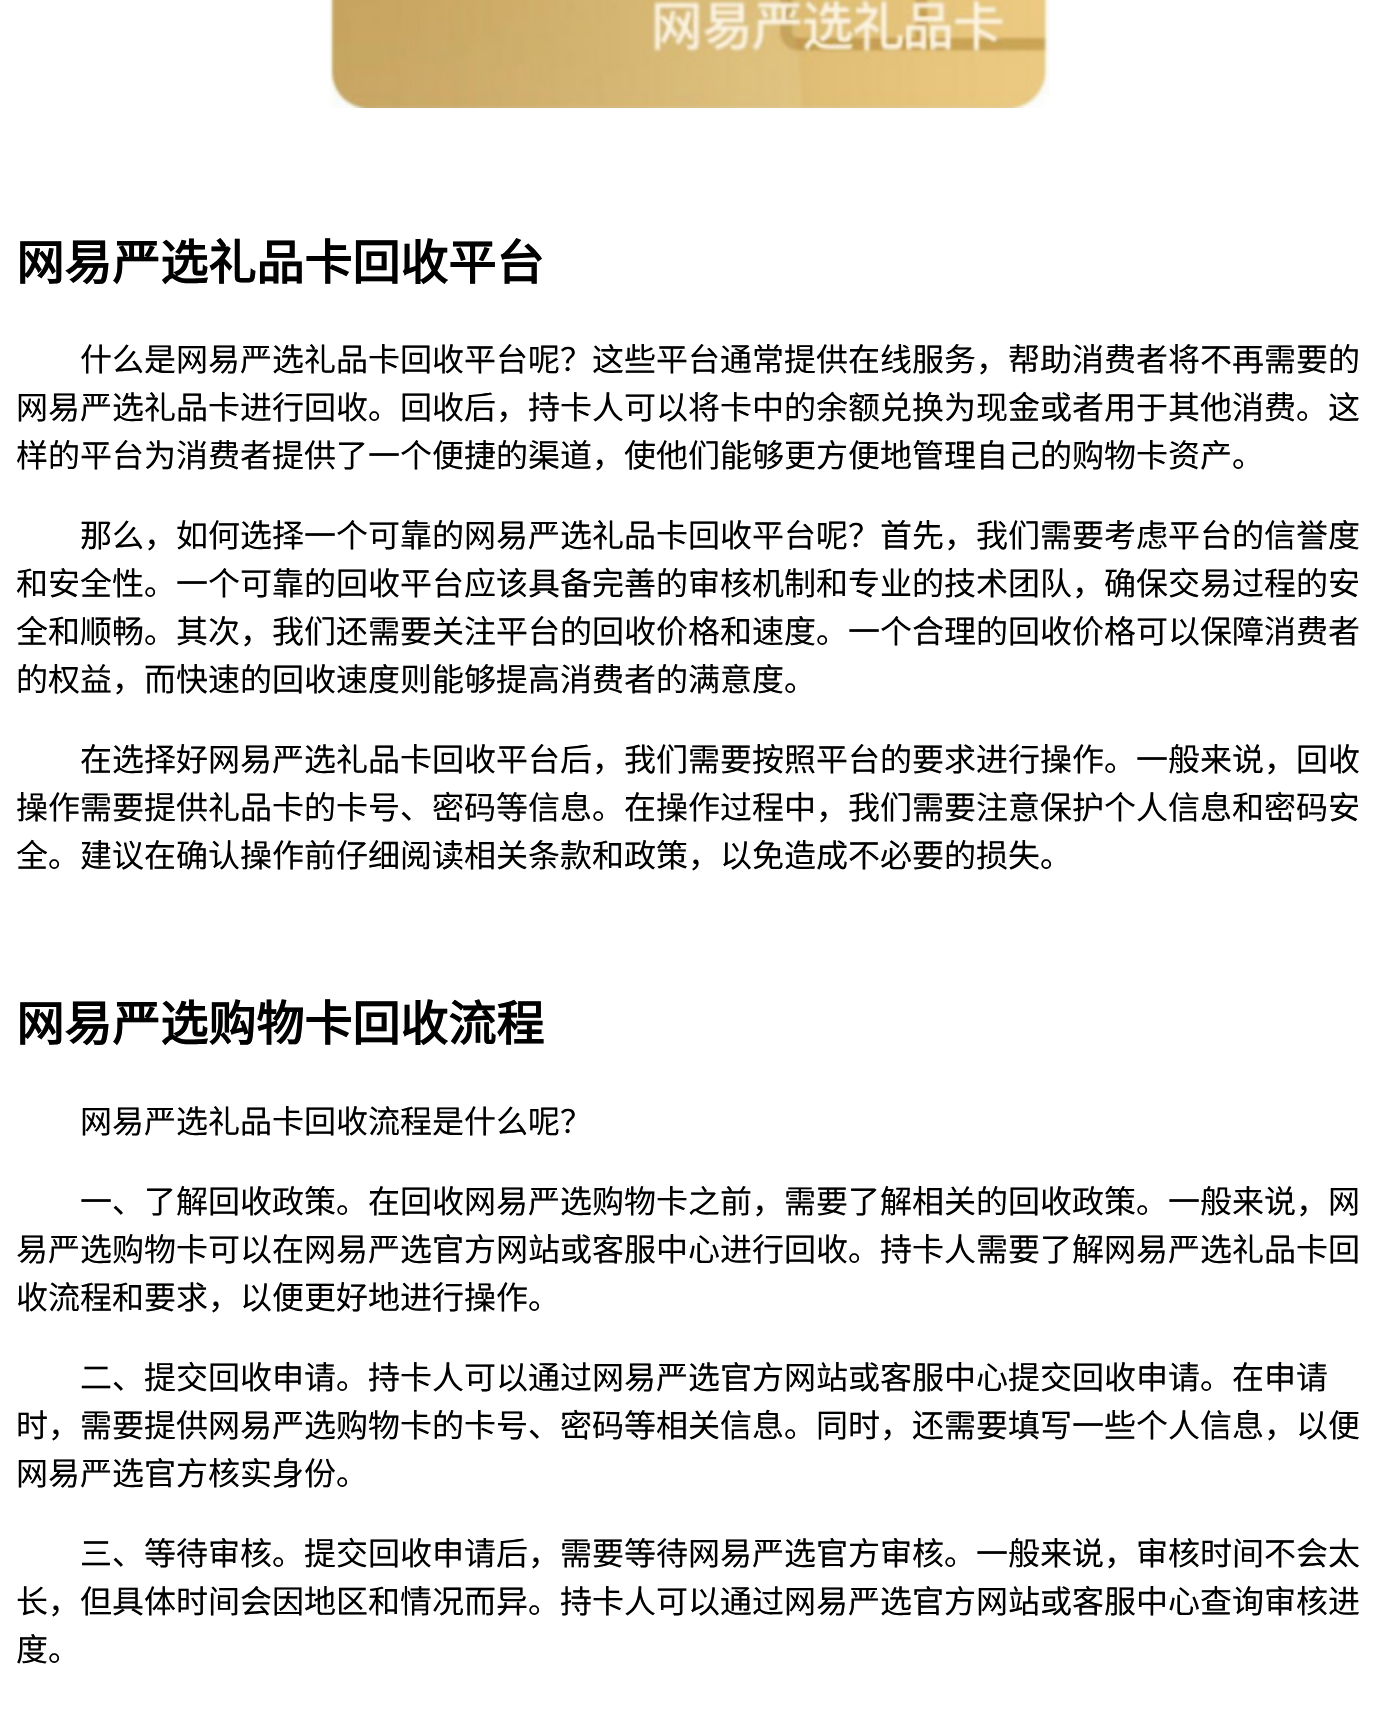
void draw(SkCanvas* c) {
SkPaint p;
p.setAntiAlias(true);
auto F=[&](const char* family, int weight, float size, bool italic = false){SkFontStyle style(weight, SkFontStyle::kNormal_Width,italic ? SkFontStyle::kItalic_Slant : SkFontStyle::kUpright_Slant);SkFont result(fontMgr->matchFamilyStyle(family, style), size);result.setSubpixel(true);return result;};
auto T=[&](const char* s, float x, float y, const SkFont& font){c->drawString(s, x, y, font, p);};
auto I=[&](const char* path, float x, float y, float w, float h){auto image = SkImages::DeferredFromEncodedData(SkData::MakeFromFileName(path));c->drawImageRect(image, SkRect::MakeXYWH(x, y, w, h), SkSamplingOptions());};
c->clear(0xffffffff);
I("1.png",329,0,721,108);
auto f1 = F("Noto Sans CJK SC",700,48);
p.setColor(0xff000000);
T("网易严选礼品卡回收平台",16,280,f1);
auto f2 = F("Noto Sans CJK SC",400,32);
T("什么是网易严选礼品卡回收平台呢？这些平台通常提供在线服务，帮助消费者将不再需要的",80,371,f2);
T("网易严选礼品卡进行回收。回收后，持卡人可以将卡中的余额兑换为现金或者用于其他消费。这",16,419,f2);
T("样的平台为消费者提供了一个便捷的渠道，使他们能够更方便地管理自己的购物卡资产。",16,467,f2);
T("那么，如何选择一个可靠的网易严选礼品卡回收平台呢？首先，我们需要考虑平台的信誉度",80,547,f2);
T("和安全性。一个可靠的回收平台应该具备完善的审核机制和专业的技术团队，确保交易过程的安",16,595,f2);
T("全和顺畅。其次，我们还需要关注平台的回收价格和速度。一个合理的回收价格可以保障消费者",16,643,f2);
T("的权益，而快速的回收速度则能够提高消费者的满意度。",16,691,f2);
T("在选择好网易严选礼品卡回收平台后，我们需要按照平台的要求进行操作。一般来说，回收",80,771,f2);
T("操作需要提供礼品卡的卡号、密码等信息。在操作过程中，我们需要注意保护个人信息和密码安",16,819,f2);
T("全。建议在确认操作前仔细阅读相关条款和政策，以免造成不必要的损失。",16,867,f2);
T("网易严选购物卡回收流程",16,1041,f1);
T("网易严选礼品卡回收流程是什么呢？",80,1133,f2);
T("一、了解回收政策。在回收网易严选购物卡之前，需要了解相关的回收政策。一般来说，网",80,1213,f2);
T("易严选购物卡可以在网易严选官方网站或客服中心进行回收。持卡人需要了解网易严选礼品卡回",16,1261,f2);
T("收流程和要求，以便更好地进行操作。",16,1309,f2);
T("二、提交回收申请。持卡人可以通过网易严选官方网站或客服中心提交回收申请。在申请",80,1389,f2);
T("时，需要提供网易严选购物卡的卡号、密码等相关信息。同时，还需要填写一些个人信息，以便",16,1437,f2);
T("网易严选官方核实身份。",16,1485,f2);
T("三、等待审核。提交回收申请后，需要等待网易严选官方审核。一般来说，审核时间不会太",80,1565,f2);
T("长，但具体时间会因地区和情况而异。持卡人可以通过网易严选官方网站或客服中心查询审核进",16,1613,f2);
T("度。",16,1661,f2);
}
